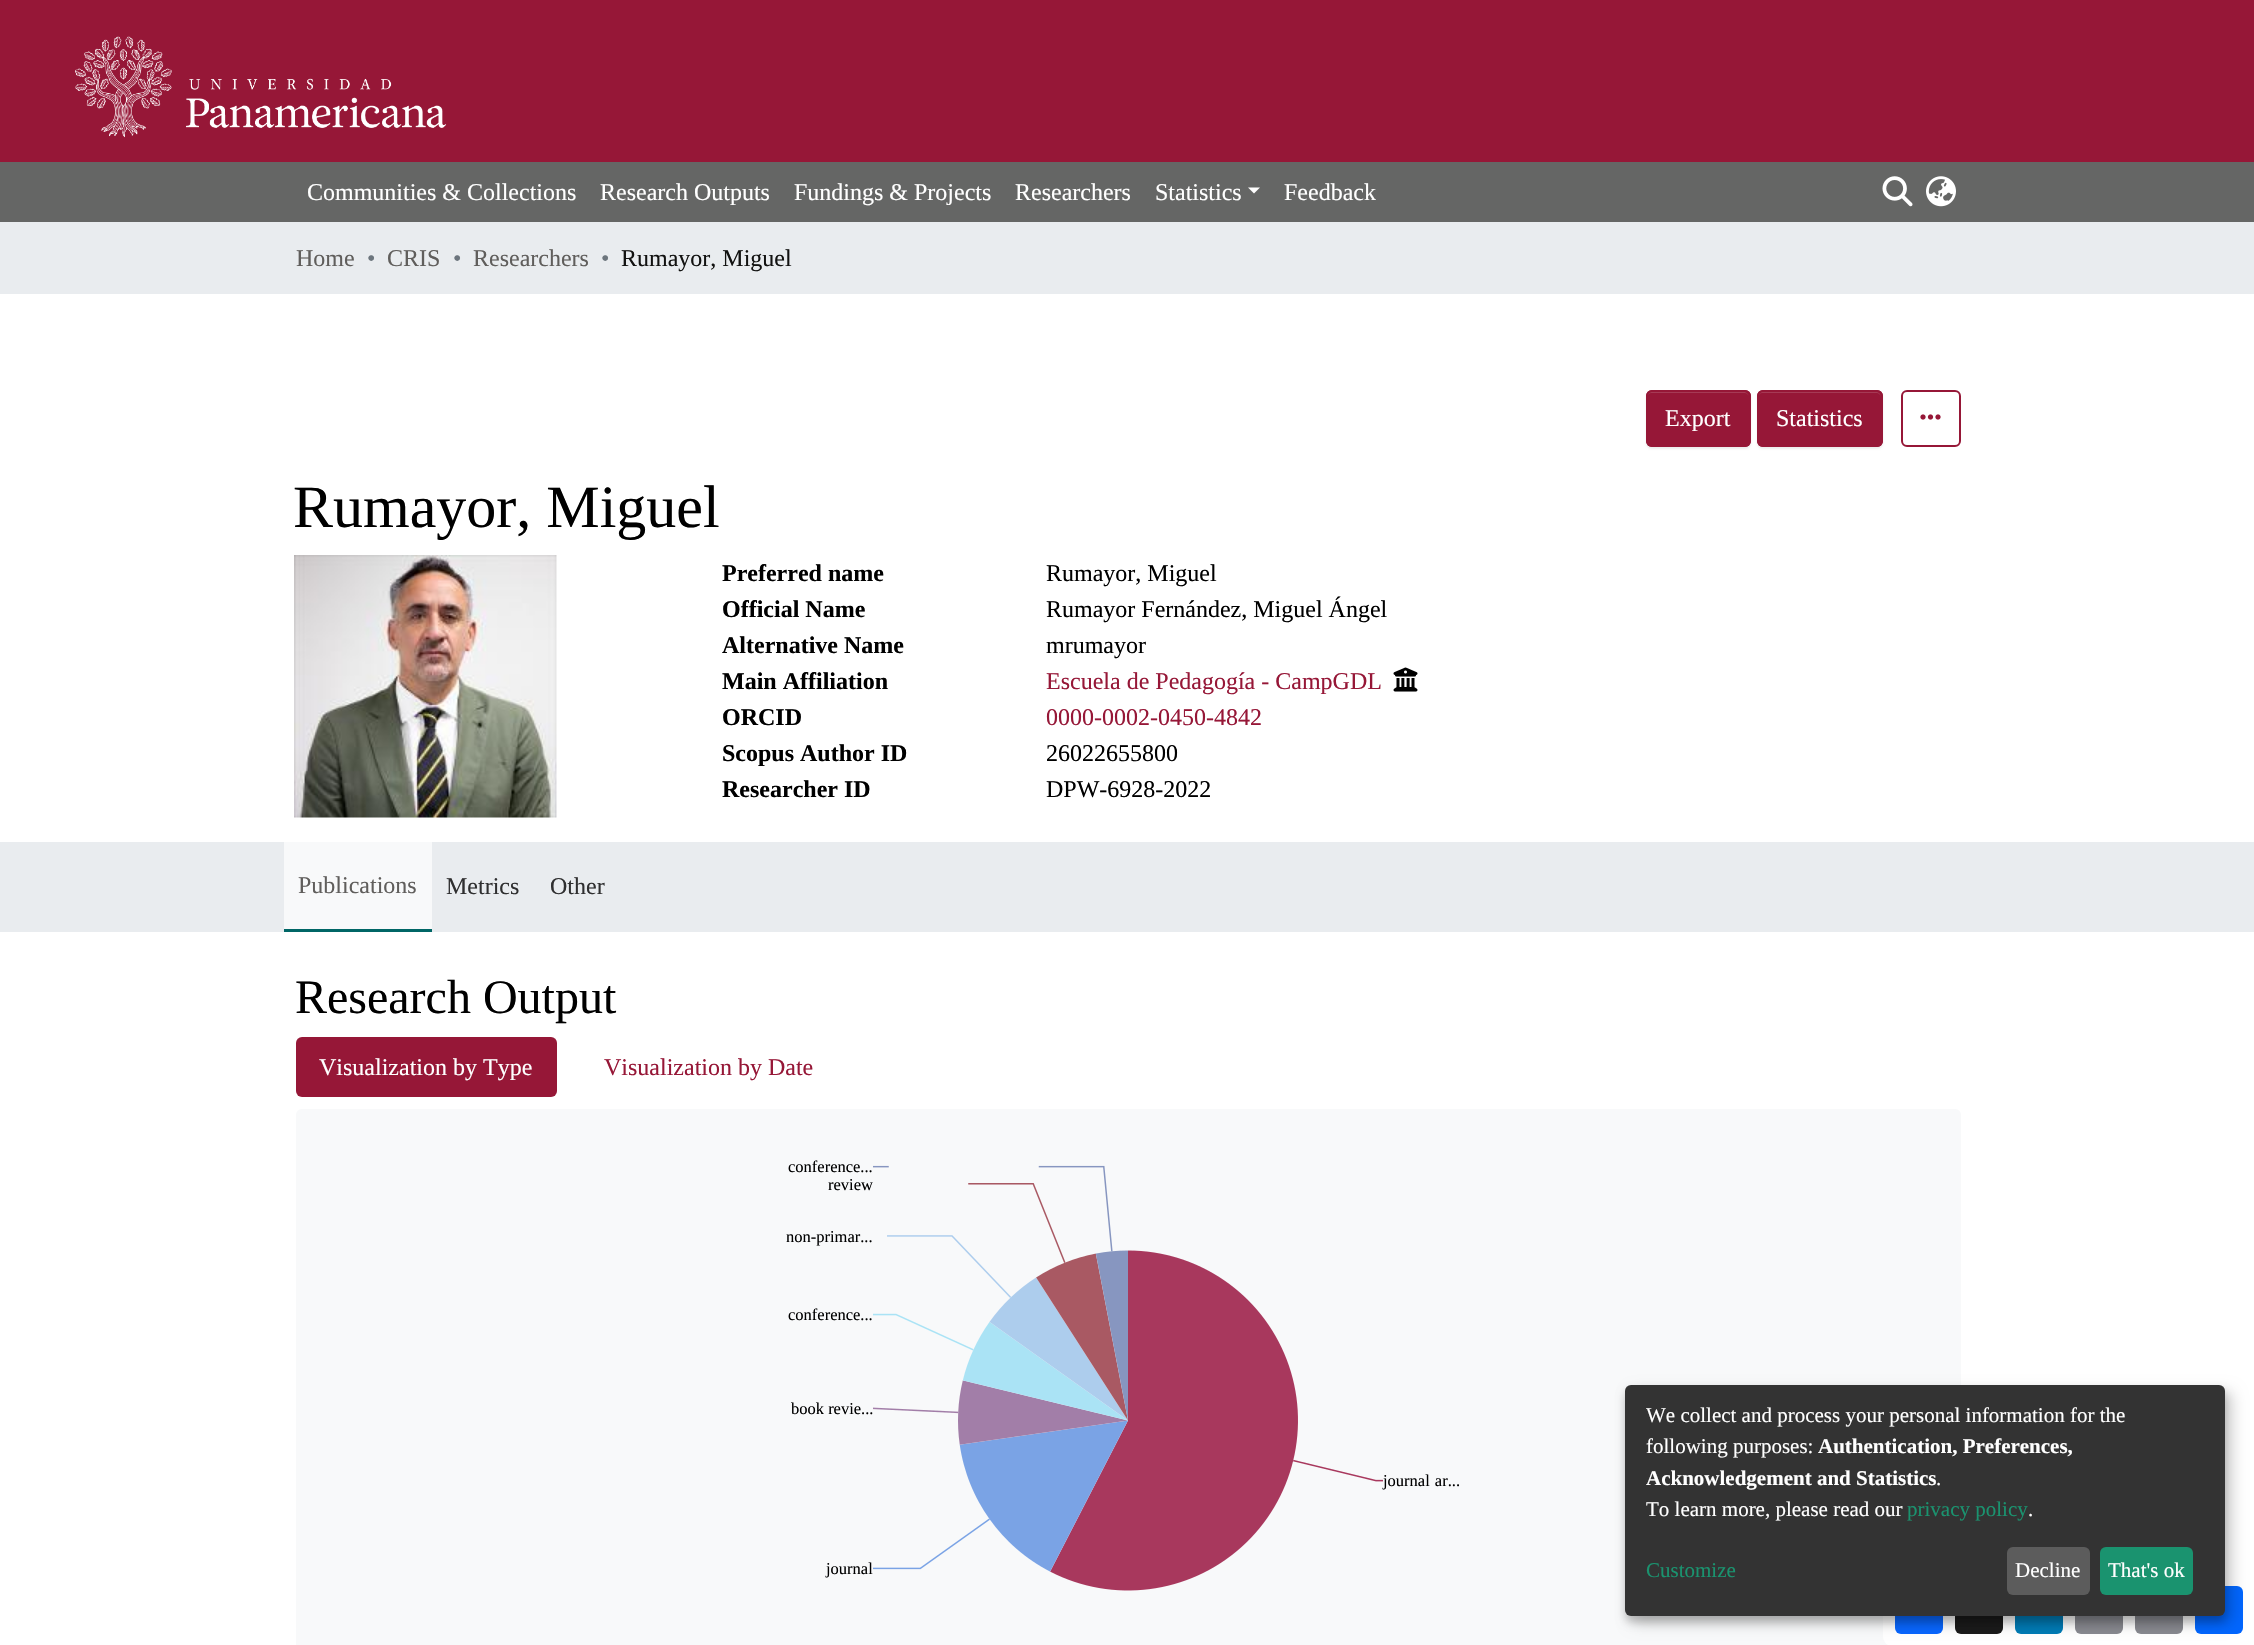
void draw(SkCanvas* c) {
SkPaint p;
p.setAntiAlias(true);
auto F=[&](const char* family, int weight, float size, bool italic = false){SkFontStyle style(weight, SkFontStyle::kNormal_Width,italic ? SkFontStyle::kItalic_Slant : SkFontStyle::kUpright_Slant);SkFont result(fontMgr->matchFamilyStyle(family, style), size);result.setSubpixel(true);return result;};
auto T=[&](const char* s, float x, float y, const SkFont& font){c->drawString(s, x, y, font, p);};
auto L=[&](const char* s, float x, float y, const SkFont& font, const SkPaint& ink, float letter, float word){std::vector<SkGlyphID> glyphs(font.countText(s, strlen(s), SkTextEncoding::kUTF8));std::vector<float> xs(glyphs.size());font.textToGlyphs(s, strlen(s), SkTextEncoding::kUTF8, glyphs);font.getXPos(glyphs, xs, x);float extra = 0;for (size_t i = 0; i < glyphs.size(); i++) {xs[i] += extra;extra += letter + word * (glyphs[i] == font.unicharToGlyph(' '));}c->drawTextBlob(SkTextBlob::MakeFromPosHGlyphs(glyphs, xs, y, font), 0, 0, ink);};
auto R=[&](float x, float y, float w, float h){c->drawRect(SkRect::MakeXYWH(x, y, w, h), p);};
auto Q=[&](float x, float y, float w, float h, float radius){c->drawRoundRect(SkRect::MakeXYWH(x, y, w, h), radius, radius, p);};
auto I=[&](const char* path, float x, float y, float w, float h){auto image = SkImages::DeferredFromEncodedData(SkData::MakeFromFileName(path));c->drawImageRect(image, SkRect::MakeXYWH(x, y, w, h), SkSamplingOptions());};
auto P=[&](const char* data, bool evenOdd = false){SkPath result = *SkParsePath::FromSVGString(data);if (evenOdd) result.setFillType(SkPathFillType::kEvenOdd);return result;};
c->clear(0xffffffff);
p.setColor(0xff656665);
R(0,162,2254,60);
p.setColor(0xff961737);
R(0,0,2254,162);
I("1.png",75,36,372,102);
auto f1 = F("Liberation Serif",400,24);
p.setColor(0xffffffff);
T("Communities & Collections",307,200,f1);
T("Research Outputs",600,200,f1);
T("Fundings & Projects",794,200,f1);
T("Researchers",1015,200,f1);
T("Statistics",1155,200,f1);
c->drawPath(P("M1248 187.5h12l-6 6z"),p);
T("Feedback",1284,200,f1);
I("2.png",1882,176,31,31);
I("3.png",1926,176,30,31);
p.setColor(0xffe9ecef);
R(0,222,2254,72);
p.setColor(0xff605e5c);
T("Home",296,266,f1);
p.setColor(0xff6c757d);
T("•",367,266,f1);
p.setColor(0xff605e5c);
T("CRIS",387,266,f1);
p.setColor(0xff6c757d);
T("•",453,266,f1);
p.setColor(0xff605e5c);
T("Researchers",473,266,f1);
p.setColor(0xff6c757d);
T("•",601,266,f1);
p.setColor(0xff121211);
T("Rumayor, Miguel",621,266,f1);
p.setColor(0x12000000);
p.setMaskFilter(SkMaskFilter::MakeBlur(kNormal_SkBlurStyle, 1));
c->drawRoundRect(SkRect::MakeXYWH(1646,392,105,57),6,6,p);
p.setMaskFilter(nullptr);
p.setColor(0xff961737);
Q(1646,390,105,57,6);
p.setColor(0xffa63a55);
c->drawPath(P("M1652 393h92c3 0 5 2 5 5c0-10-15-6-20-6h-62c-5 0-20-4-20 6c0-3 2-5 5-5z"),p);
p.setStroke(true);
p.setStrokeWidth(2);
p.setColor(0xff961737);
c->drawRoundRect(SkRect::MakeXYWH(1647,391,103,55),5,5,p);
p.setStroke(false);
p.setColor(0xffffffff);
T("Export",1665,426,f1);
p.setColor(0x12000000);
p.setMaskFilter(SkMaskFilter::MakeBlur(kNormal_SkBlurStyle, 1));
c->drawRoundRect(SkRect::MakeXYWH(1757,392,126,57),6,6,p);
p.setMaskFilter(nullptr);
p.setColor(0xff961737);
Q(1757,390,126,57,6);
p.setColor(0xffa63a55);
c->drawPath(P("M1762 393h114c3 0 5 2 5 5c0-11-19-6-24-6h-75c-5 0-24-5-24 6c0-3 2-5 4-5z"),p);
p.setStroke(true);
p.setColor(0xff961737);
c->drawRoundRect(SkRect::MakeXYWH(1758,391,124,55),5,5,p);
p.setStroke(false);
p.setColor(0xffffffff);
T("Statistics",1776,426,f1);
p.setStroke(true);
p.setColor(0xff961737);
c->drawRoundRect(SkRect::MakeXYWH(1902,391,58,55),5,5,p);
I("4.png",1920,414,21,6);
auto f2 = F("Liberation Serif",400,60);
p.setStroke(false);
p.setColor(0xff000000);
T("Rumayor, Miguel",293,527,f2);
I("5.png",294,555,263,263);
auto f3 = F("Liberation Serif",700,24);
T("Preferred name",722,581,f3);
T("Rumayor, Miguel",1046,581,f1);
T("Official Name",722,617,f3);
T("Rumayor Fernández, Miguel Ángel",1046,617,f1);
T("Alternative Name",722,653,f3);
T("mrumayor",1046,653,f1);
T("Main Affiliation",722,689,f3);
p.setColor(0xff961737);
T("Escuela de Pedagogía - CampGDL",1046,689,f1);
I("6.png",1393,667,25,25);
p.setColor(0xff000000);
T("ORCID",722,725,f3);
p.setColor(0xff961737);
T("0000-0002-0450-4842",1046,725,f1);
p.setColor(0xff000000);
T("Scopus Author ID",722,761,f3);
T("26022655800",1046,761,f1);
T("Researcher ID",722,797,f3);
T("DPW-6928-2022",1046,797,f1);
p.setColor(0xffe9ecef);
R(0,842,2254,90);
p.setColor(0xff006666);
R(284,929,148,3);
p.setColor(0xfff8f9fa);
R(284,842,148,87);
p.setColor(0xff605e5c);
T("Publications",298,893,f1);
p.setColor(0xff2f2f30);
T("Metrics",446,894,f1);
T("Other",550,894,f1);
auto f4 = F("Liberation Serif",400,48);
p.setColor(0xff000000);
T("Research Output",295,1013,f4);
p.setColor(0xff961737);
Q(296,1037,261,60,6);
p.setColor(0xffffffff);
T("Visualization by Type",319,1075,f1);
p.setColor(0xff961737);
T("Visualization by Date",604,1075,f1);
p.setColor(0xfff8f9fa);
Q(296,1109,1665,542,6);
auto f5 = F("Liberation Serif",400,16.5);
p.setColor(0xff000000);
L("journal ar...",1383,1486,f5,p,0,1);
I("7.png",873,1165,510,426);
T("conference...",788,1172,f5);
T("review",828,1190,f5);
T("non-primar...",786,1242,f5);
T("conference...",788,1320,f5);
T("book revie...",791,1414,f5);
T("journal",826,1574,f5);
p.setColor(0xffffffff);
Q(1883,1574,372,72,9);
p.setColor(0xff0866ff);
Q(1895,1586,48,48,6);
p.setColor(0xff1a1a1a);
Q(1955,1586,48,48,6);
p.setColor(0xff007bb5);
Q(2015,1586,48,48,6);
p.setColor(0xff888990);
Q(2075,1586,48,48,6);
Q(2135,1586,48,48,6);
p.setColor(0xff0166ff);
Q(2195,1586,48,48,6);
p.setColor(0x30000000);
p.setMaskFilter(SkMaskFilter::MakeBlur(kNormal_SkBlurStyle, 7.5));
c->drawRoundRect(SkRect::MakeXYWH(1632,1392,600,231),6,6,p);
p.setMaskFilter(nullptr);
p.setColor(0x33000000);
p.setMaskFilter(SkMaskFilter::MakeBlur(kNormal_SkBlurStyle, 4.5));
c->drawRoundRect(SkRect::MakeXYWH(1625,1391,600,231),6,6,p);
p.setMaskFilter(nullptr);
p.setColor(0xff333333);
Q(1625,1385,600,231,6);
auto f6 = F("Liberation Serif",400,21);
p.setColor(0xffffffff);
T("We collect and process your personal information for the",1646,1422,f6);
T("following purposes:",1646,1453,f6);
auto f7 = F("Liberation Serif",700,21);
T("Authentication, Preferences,",1818,1453,f7);
T("Acknowledgement and Statistics",1646,1485,f7);
T(".",1936,1485,f6);
T("To learn more, please read our",1646,1516,f6);
p.setColor(0xff1a936f);
T("privacy policy",1907,1516,f6);
p.setColor(0xffffffff);
T(".",2028,1516,f6);
p.setColor(0xff1a936f);
T("Customize",1646,1577,f6);
p.setColor(0xff5c5c5c);
Q(2007,1547,83,48,6);
p.setColor(0xffffffff);
T("Decline",2015,1577,f6);
p.setColor(0xff1a936f);
Q(2100,1547,93,48,6);
p.setColor(0xffffffff);
T("That's ok",2108,1577,f6);
}
